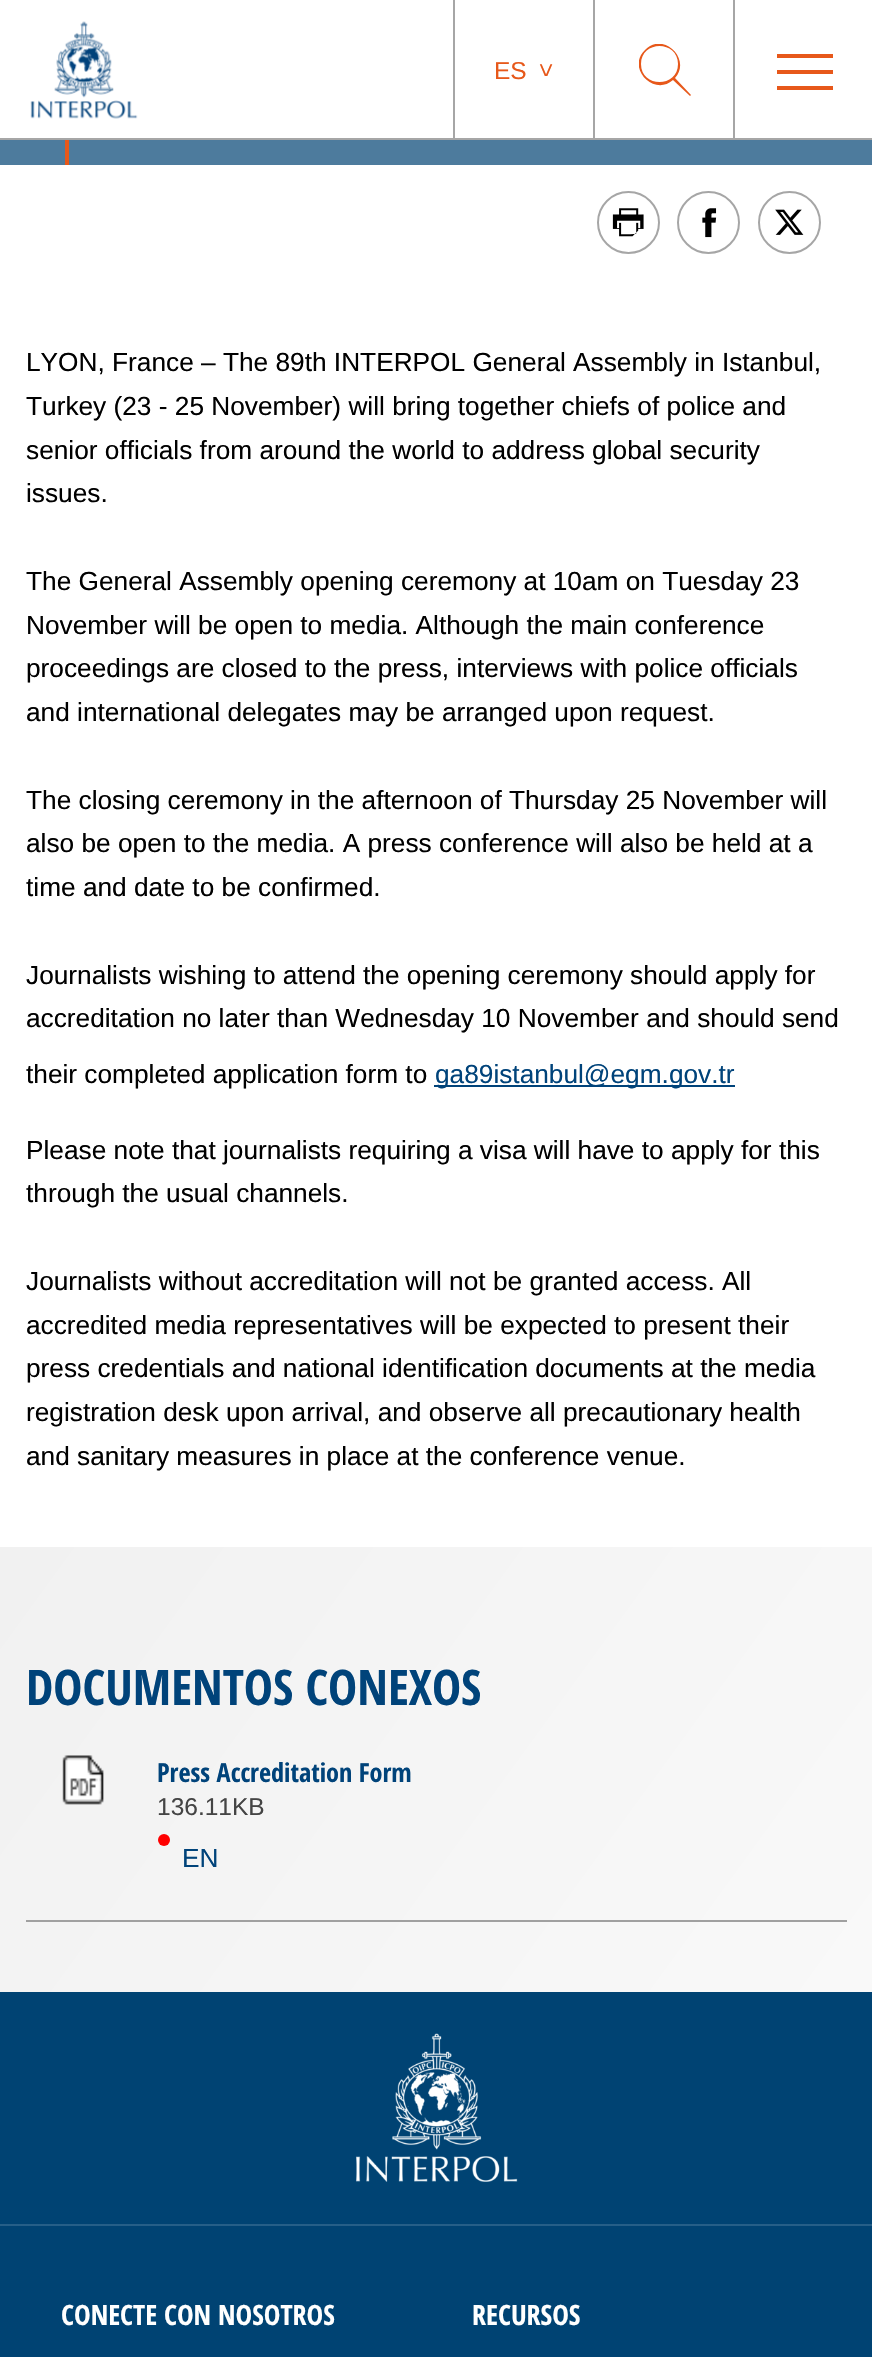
void draw(SkCanvas* c) {
SkPaint p;
p.setAntiAlias(true);
auto F=[&](const char* family, int weight, float size, bool italic = false){SkFontStyle style(weight, SkFontStyle::kNormal_Width,italic ? SkFontStyle::kItalic_Slant : SkFontStyle::kUpright_Slant);SkFont result(fontMgr->matchFamilyStyle(family, style), size);result.setSubpixel(true);return result;};
auto T=[&](const char* s, float x, float y, const SkFont& font){c->drawString(s, x, y, font, p);};
auto R=[&](float x, float y, float w, float h){c->drawRect(SkRect::MakeXYWH(x, y, w, h), p);};
auto I=[&](const char* path, float x, float y, float w, float h){auto image = SkImages::DeferredFromEncodedData(SkData::MakeFromFileName(path));c->drawImageRect(image, SkRect::MakeXYWH(x, y, w, h), SkSamplingOptions());};
auto P=[&](const char* data, bool evenOdd = false){SkPath result = *SkParsePath::FromSVGString(data);if (evenOdd) result.setFillType(SkPathFillType::kEvenOdd);return result;};
c->clear(0xffffffff);
p.setColor(0xff4d7b9d);
R(0,140,872,25);
p.setColor(0xffa6a6a6);
R(0,138,872,2);
I("1.png",30,21,108,98);
R(453,0,2,140);
auto f1 = F("Liberation Sans",400,24.5);
p.setColor(0xffe7581a);
T("ES",494,79,f1);
c->save();
c->rotate(90,538,63);
T(">",538,63,f1);
c->restore();
p.setColor(0xffa6a6a6);
R(593,0,2,140);
c->save();
c->clipRect(SkRect::MakeXYWH(639,44,52,52));
p.setColor(0xffe7581a);
c->drawPath(P("M678 64c0-24-37-24-37 0c0 24 37 24 37 0zm13 31l-1 1l-17-16c-19 17-47-12-28-30c18-19 47 9 30 28z"),p);
c->restore();
p.setColor(0xffa6a6a6);
R(733,0,2,140);
p.setColor(0xffe7581a);
R(777,70,56,4);
R(777,54,56,4);
R(777,86,56,4);
R(65,140,4,25);
p.setStroke(true);
p.setStrokeWidth(2);
p.setColor(0xffa6a6a6);
c->drawCircle(628.5,222.5,30.5,p);
I("2.png",612,208,32,29);
c->drawCircle(708.5,222.5,30.5,p);
I("3.png",702,208,15,30);
c->drawCircle(789.5,222.5,30.5,p);
I("4.png",775,209,29,26);
auto f2 = F("Liberation Sans",400,26.25);
p.setStroke(false);
p.setColor(0xff000000);
T("LYON, France – The 89th INTERPOL General Assembly in Istanbul,",26,371,f2);
T("Turkey (23 - 25 November) will bring together chiefs of police and",26,415,f2);
T("senior officials from around the world to address global security",26,459,f2);
T("issues.",26,502,f2);
T("The General Assembly opening ceremony at 10am on Tuesday 23",26,590,f2);
T("November will be open to media. Although the main conference",26,634,f2);
T("proceedings are closed to the press, interviews with police officials",26,677,f2);
T("and international delegates may be arranged upon request.",26,721,f2);
T("The closing ceremony in the afternoon of Thursday 25 November will",26,809,f2);
T("also be open to the media. A press conference will also be held at a",26,852,f2);
T("time and date to be confirmed.",26,896,f2);
T("Journalists wishing to attend the opening ceremony should apply for",26,984,f2);
T("accreditation no later than Wednesday 10 November and should send",26,1027,f2);
T("their completed application form to",26,1083,f2);
p.setColor(0xff00437a);
R(434,1085,301,2);
T("ga89istanbul@egm.gov.tr",435,1083,f2);
p.setColor(0xff000000);
T("Please note that journalists requiring a visa will have to apply for this",26,1159,f2);
T("through the usual channels.",26,1202,f2);
T("Journalists without accreditation will not be granted access. All",26,1290,f2);
T("accredited media representatives will be expected to present their",26,1334,f2);
T("press credentials and national identification documents at the media",26,1377,f2);
T("registration desk upon arrival, and observe all precautionary health",26,1421,f2);
T("and sanitary measures in place at the conference venue.",26,1465,f2);
{
const SkColor colors[] = {0xfff1f1f1,0xfff9f9f9};
const float stops[] = {0,1};
const SkPoint ends[] = {{45,1485}, {828,2054}};
p.setShader(SkGradientShader::MakeLinear(ends, colors, stops, 2, SkTileMode::kClamp));
p.setAlpha(255);
}
R(0,1547,872,445);
auto f3 = F("Open Sans Condensed",700,49);
p.setShader(nullptr);
p.setColor(0xff00437a);
T("DOCUMENTOS CONEXOS",26,1705,f3);
p.setColor(0xffa0a0a0);
R(26,1920,821,2);
I("5.png",62,1755,42,50);
auto f4 = F("Open Sans Condensed",700,26.25);
p.setColor(0xff00437a);
T("Press Accreditation Form",157,1782,f4);
p.setColor(0xff444444);
T("136.11KB",157,1815,f1);
p.setColor(0xffff0000);
c->drawCircle(164,1840,6,p);
p.setColor(0xff00437a);
T("EN",182,1867,f2);
p.setColor(0xff004373);
R(0,1992,872,365);
p.setColor(0xff265f88);
R(0,2224,872,2);
I("6.png",356,2033,162,149);
auto f5 = F("Open Sans Condensed",700,28);
p.setColor(0xffffffff);
T("CONECTE CON NOSOTROS",61,2325,f5);
T("RECURSOS",472,2325,f5);
}
